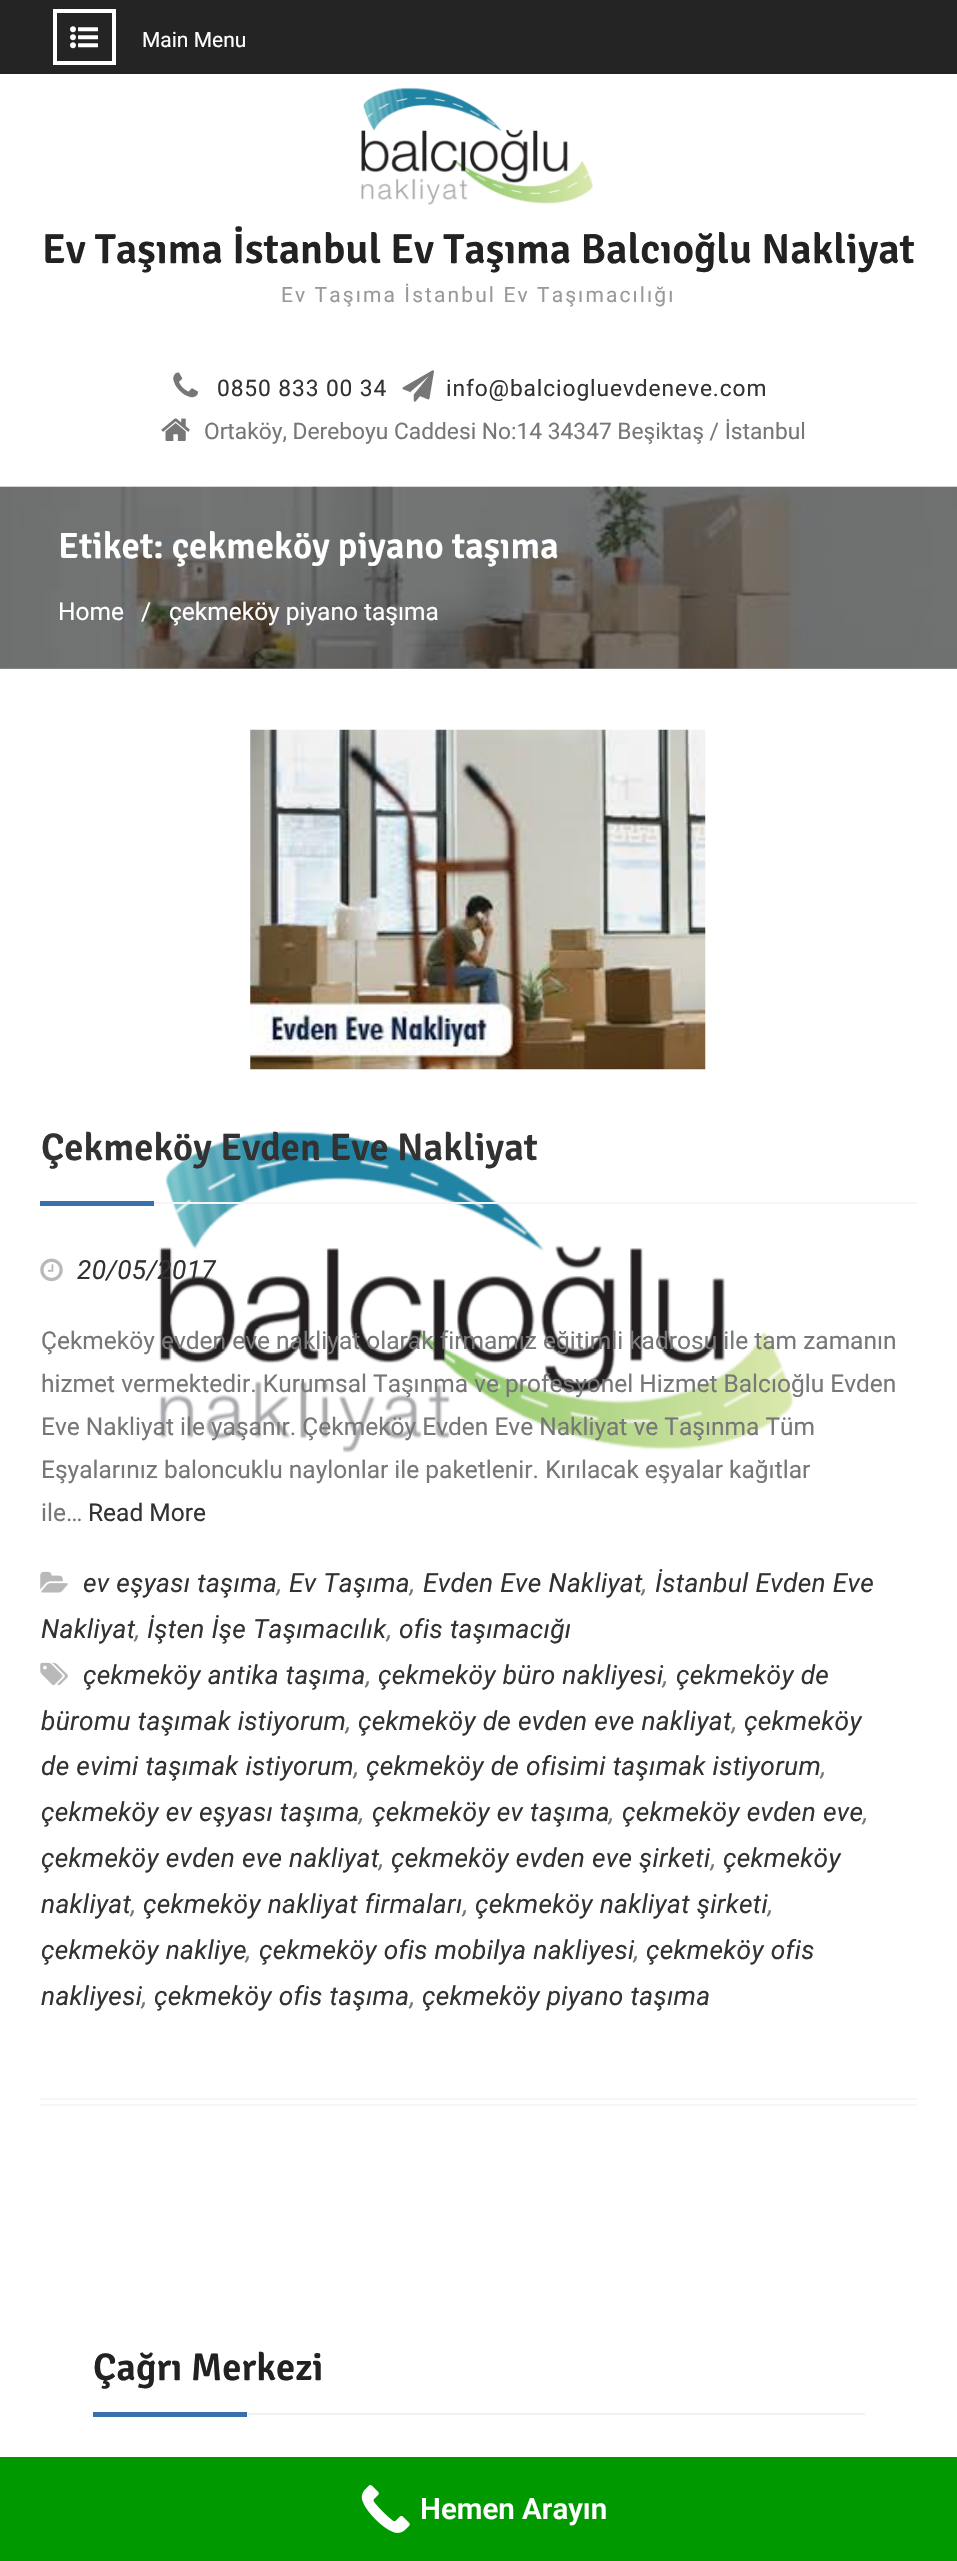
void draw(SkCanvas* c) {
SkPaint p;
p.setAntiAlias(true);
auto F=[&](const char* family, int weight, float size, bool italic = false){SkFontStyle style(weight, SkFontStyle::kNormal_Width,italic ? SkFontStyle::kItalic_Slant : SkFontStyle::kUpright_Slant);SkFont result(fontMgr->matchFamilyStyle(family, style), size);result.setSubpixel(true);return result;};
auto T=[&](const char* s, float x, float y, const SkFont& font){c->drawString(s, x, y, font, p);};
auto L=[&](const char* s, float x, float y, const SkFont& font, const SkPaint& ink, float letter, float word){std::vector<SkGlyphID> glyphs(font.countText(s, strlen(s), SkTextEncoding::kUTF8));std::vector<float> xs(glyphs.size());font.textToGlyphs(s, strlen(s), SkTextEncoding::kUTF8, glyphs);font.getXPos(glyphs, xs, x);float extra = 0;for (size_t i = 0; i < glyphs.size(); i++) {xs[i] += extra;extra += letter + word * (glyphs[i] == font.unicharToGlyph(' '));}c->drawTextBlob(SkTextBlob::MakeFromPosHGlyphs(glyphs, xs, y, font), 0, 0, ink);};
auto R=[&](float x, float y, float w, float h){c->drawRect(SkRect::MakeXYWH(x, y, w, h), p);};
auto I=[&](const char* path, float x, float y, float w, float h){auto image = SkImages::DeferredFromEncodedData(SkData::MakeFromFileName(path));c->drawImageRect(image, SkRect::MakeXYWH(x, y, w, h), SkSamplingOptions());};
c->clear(0xffffffff);
I("1.png",159,1131,635,322);
p.setColor(0xff242424);
R(0,0,957,74);
p.setStroke(true);
p.setStrokeWidth(4);
p.setColor(0xfffffffe);
c->drawRect(SkRect::MakeXYWH(55,11,59,52),p);
I("2.png",70,26,28,23);
auto f1 = F("Roboto",400,21);
p.setStroke(false);
p.setColor(0xffffffff);
T("Main Menu",142,47,f1);
I("3.png",361,87,232,118);
auto f2 = F("Signika",600,42);
p.setColor(0xff222222);
T("Ev Taşıma İstanbul Ev Taşıma Balcıoğlu Nakliyat",42,263,f2);
p.setColor(0xff999999);
L("Ev Taşıma İstanbul Ev Taşımacılığı",281,302,f1,p,2.1,0);
I("4.png",173,372,25,26);
auto f3 = F("Roboto",400,22.75);
p.setColor(0xff323232);
L("0850 833 00 34",217,396,f3,p,.9,0);
I("5.png",402,370,32,32);
L("info@balciogluevdeneve.com",446,396,f3,p,.9,0);
I("6.png",161,418,29,23);
p.setColor(0xff777777);
T("Ortaköy, Dereboyu Caddesi No:14 34347 Beşiktaş / İstanbul",204,439,f3);
p.setColor(0xff9d9e9e);
R(0,668,957,1);
I("7.png",0,486,957,183);
auto f4 = F("Signika",600,36.75);
p.setColor(0xffffffff);
T("Etiket: çekmeköy piyano taşıma",58,558,f4);
auto f5 = F("Roboto",400,24.5);
T("Home",58,620,f5);
T("/",141,620,f5);
T("çekmeköy piyano taşıma",169,620,f5);
p.setColor(0xfff7f5f5);
R(40,2098,877,2);
R(40,2104,877,2);
I("8.png",250,729,456,341);
R(154,1202,763,2);
auto f6 = F("Signika",600,38.5);
p.setColor(0xff323232);
T("Çekmeköy Evden Eve Nakliyat",41,1160,f6);
p.setColor(0xff3770ab);
R(40,1201,114,5);
I("9.png",40,1258,23,24);
auto f7 = F("Roboto",400,26.25,true);
p.setColor(0xff323232);
L("20/05/2017",77,1279,f7,p,.35,0);
p.setColor(0xff777777);
T("Çekmeköy evden eve nakliyat olarak firmamız eğitimli kadrosu ile tam zamanın",41,1349,f5);
T("hizmet vermektedir. Kurumsal Taşınma ve profesyonel Hizmet Balcıoğlu Evden",41,1392,f5);
T("Eve Nakliyat ile yaşanır. Çekmeköy Evden Eve Nakliyat ve Taşınma Tüm",41,1435,f5);
T("Eşyalarınız baloncuklu naylonlar ile paketlenir. Kırılacak eşyalar kağıtlar",41,1478,f5);
T("ile…",41,1521,f5);
p.setColor(0xff323232);
T("Read More",88,1521,f5);
I("10.png",40,1571,28,22);
L("ev eşyası taşıma",83,1592,f7,p,.35,0);
p.setColor(0xff777777);
L(",",277,1592,f7,p,.35,0);
p.setColor(0xff323232);
L("Ev Taşıma",289,1592,f7,p,.35,0);
p.setColor(0xff777777);
L(",",410,1592,f7,p,.35,0);
p.setColor(0xff323232);
L("Evden Eve Nakliyat",423,1592,f7,p,.35,0);
L("İstanbul Evden Eve",655,1592,f7,p,.35,0);
p.setColor(0xff777777);
L(",",642,1592,f7,p,.35,0);
p.setColor(0xff323232);
L("Nakliyat",41,1638,f7,p,.35,0);
p.setColor(0xff777777);
L(",",135,1638,f7,p,.35,0);
p.setColor(0xff323232);
L("İşten İşe Taşımacılık",147,1638,f7,p,.35,0);
p.setColor(0xff777777);
L(",",387,1638,f7,p,.35,0);
p.setColor(0xff323232);
L("ofis taşımacığı",399,1638,f7,p,.35,0);
I("11.png",40,1662,28,23);
L("çekmeköy antika taşıma",83,1684,f7,p,.35,0);
p.setColor(0xff777777);
L(",",366,1684,f7,p,.35,0);
p.setColor(0xff323232);
L("çekmeköy büro nakliyesi",378,1684,f7,p,.35,0);
p.setColor(0xff777777);
L(",",663,1684,f7,p,.35,0);
p.setColor(0xff323232);
L("çekmeköy de",676,1684,f7,p,.35,0);
L("büromu taşımak istiyorum",41,1730,f7,p,.35,0);
p.setColor(0xff777777);
L(",",346,1730,f7,p,.35,0);
p.setColor(0xff323232);
L("çekmeköy de evden eve nakliyat",358,1730,f7,p,.35,0);
p.setColor(0xff777777);
L(",",732,1730,f7,p,.35,0);
p.setColor(0xff323232);
L("çekmeköy",744,1730,f7,p,.35,0);
L("de evimi taşımak istiyorum",41,1775,f7,p,.35,0);
p.setColor(0xff777777);
L(",",354,1775,f7,p,.35,0);
p.setColor(0xff323232);
L("çekmeköy de ofisimi taşımak istiyorum",366,1775,f7,p,.35,0);
p.setColor(0xff777777);
L(",",821,1775,f7,p,.35,0);
p.setColor(0xff323232);
L("çekmeköy ev eşyası taşıma",41,1821,f7,p,.35,0);
p.setColor(0xff777777);
L(",",359,1821,f7,p,.35,0);
p.setColor(0xff323232);
L("çekmeköy ev taşıma",372,1821,f7,p,.35,0);
p.setColor(0xff777777);
L(",",609,1821,f7,p,.35,0);
p.setColor(0xff323232);
L("çekmeköy evden eve",622,1821,f7,p,.35,0);
p.setColor(0xff777777);
L(",",863,1821,f7,p,.35,0);
p.setColor(0xff323232);
L("çekmeköy evden eve nakliyat",41,1867,f7,p,.35,0);
p.setColor(0xff777777);
L(",",379,1867,f7,p,.35,0);
p.setColor(0xff323232);
L("çekmeköy evden eve şirketi",391,1867,f7,p,.35,0);
p.setColor(0xff777777);
L(",",711,1867,f7,p,.35,0);
p.setColor(0xff323232);
L("çekmeköy",723,1867,f7,p,.35,0);
L("nakliyat",41,1913,f7,p,.35,0);
p.setColor(0xff777777);
L(",",131,1913,f7,p,.35,0);
p.setColor(0xff323232);
L("çekmeköy nakliyat firmaları",143,1913,f7,p,.35,0);
p.setColor(0xff777777);
L(",",463,1913,f7,p,.35,0);
p.setColor(0xff323232);
L("çekmeköy nakliyat şirketi",475,1913,f7,p,.35,0);
p.setColor(0xff777777);
L(",",768,1913,f7,p,.35,0);
p.setColor(0xff323232);
L("çekmeköy nakliye",41,1959,f7,p,.35,0);
p.setColor(0xff777777);
L(",",246,1959,f7,p,.35,0);
p.setColor(0xff323232);
L("çekmeköy ofis mobilya nakliyesi",259,1959,f7,p,.35,0);
p.setColor(0xff777777);
L(",",634,1959,f7,p,.35,0);
p.setColor(0xff323232);
L("çekmeköy ofis",646,1959,f7,p,.35,0);
L("nakliyesi",41,2005,f7,p,.35,0);
p.setColor(0xff777777);
L(",",142,2005,f7,p,.35,0);
p.setColor(0xff323232);
L("çekmeköy ofis taşıma",154,2005,f7,p,.35,0);
p.setColor(0xff777777);
L(",",410,2005,f7,p,.35,0);
p.setColor(0xff323232);
L("çekmeköy piyano taşıma",422,2005,f7,p,.35,0);
p.setColor(0xfff1f0f0);
R(247,2413,618,2);
p.setColor(0xff222222);
T("Çağrı Merkezi",93,2380,f6);
p.setColor(0xff3770ab);
R(93,2412,154,5);
p.setColor(0xff009900);
R(0,2457,957,104);
I("12.png",361,2485,49,48);
auto f8 = F("Roboto",600,29.5);
p.setColor(0xffffffff);
T("Hemen Arayın",420,2519,f8);
}
